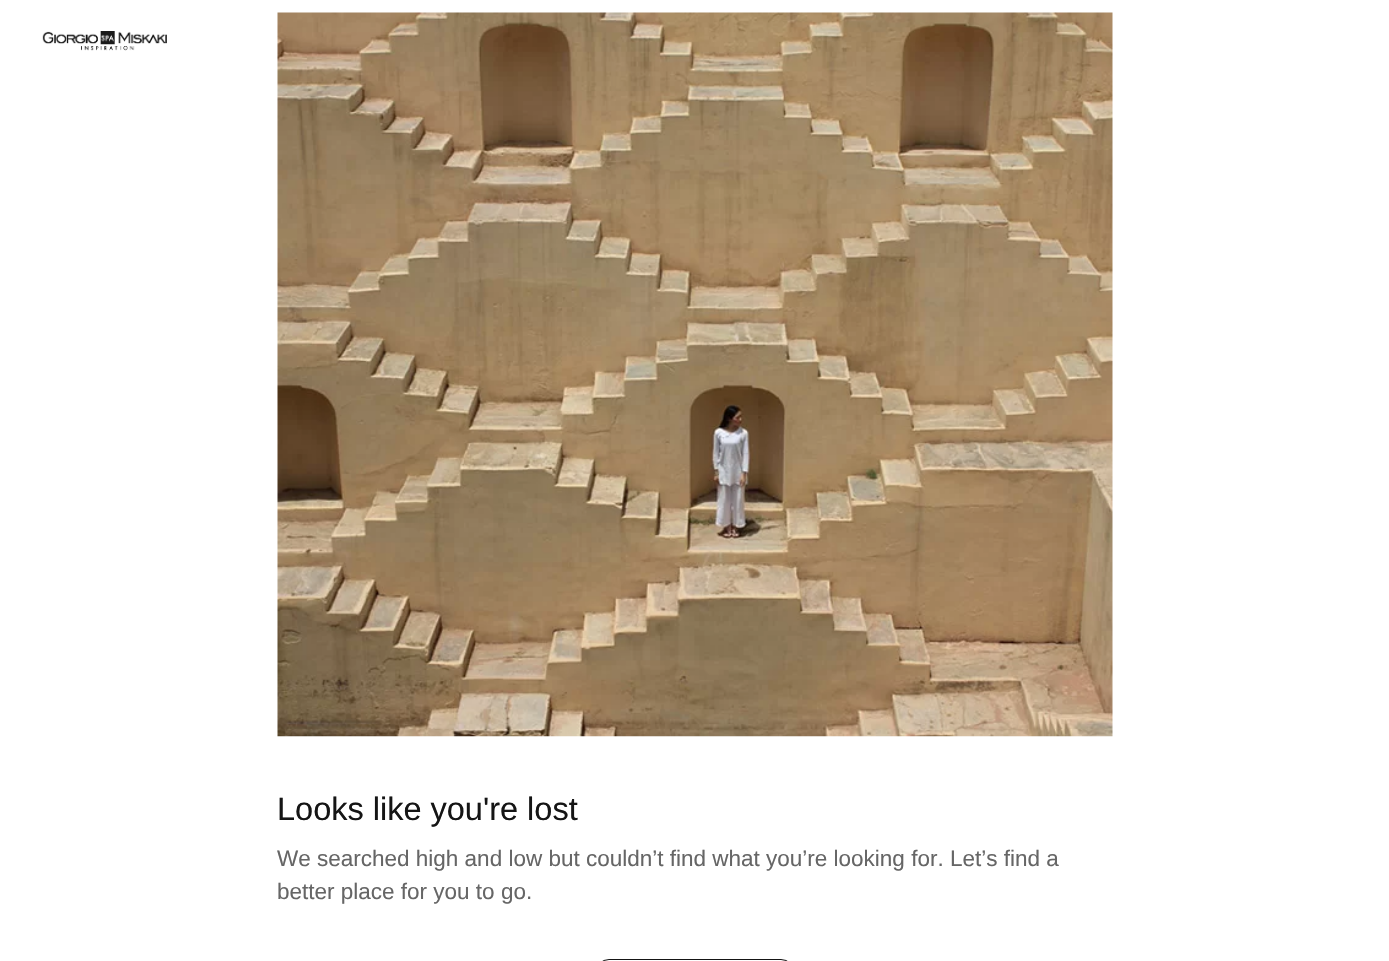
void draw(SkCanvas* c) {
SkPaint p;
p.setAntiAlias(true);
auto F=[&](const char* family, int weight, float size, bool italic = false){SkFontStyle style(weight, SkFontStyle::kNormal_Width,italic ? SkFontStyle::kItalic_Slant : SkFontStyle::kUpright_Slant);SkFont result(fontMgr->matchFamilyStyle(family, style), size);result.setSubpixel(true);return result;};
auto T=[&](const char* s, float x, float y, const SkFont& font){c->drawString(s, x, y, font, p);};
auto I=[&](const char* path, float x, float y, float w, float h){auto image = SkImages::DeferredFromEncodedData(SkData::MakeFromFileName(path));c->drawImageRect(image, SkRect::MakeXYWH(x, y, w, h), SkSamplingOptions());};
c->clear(0xffffffff);
I("1.png",42,31,125,20);
I("2.png",277,12,836,725);
auto f1 = F("Liberation Sans",400,32.5);
p.setColor(0xff151515);
T("Looks like you're lost",277,820,f1);
auto f2 = F("Liberation Sans",400,22.5);
p.setColor(0xff666666);
T("We searched high and low but couldn’t find what you’re looking for. Let’s find a",277,866,f2);
T("better place for you to go.",277,899,f2);
p.setStroke(true);
p.setStrokeWidth(1);
p.setColor(0xff151515);
c->drawRoundRect(SkRect::MakeXYWH(595.5,959.5,199,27),24.5,24.5,p);
}
